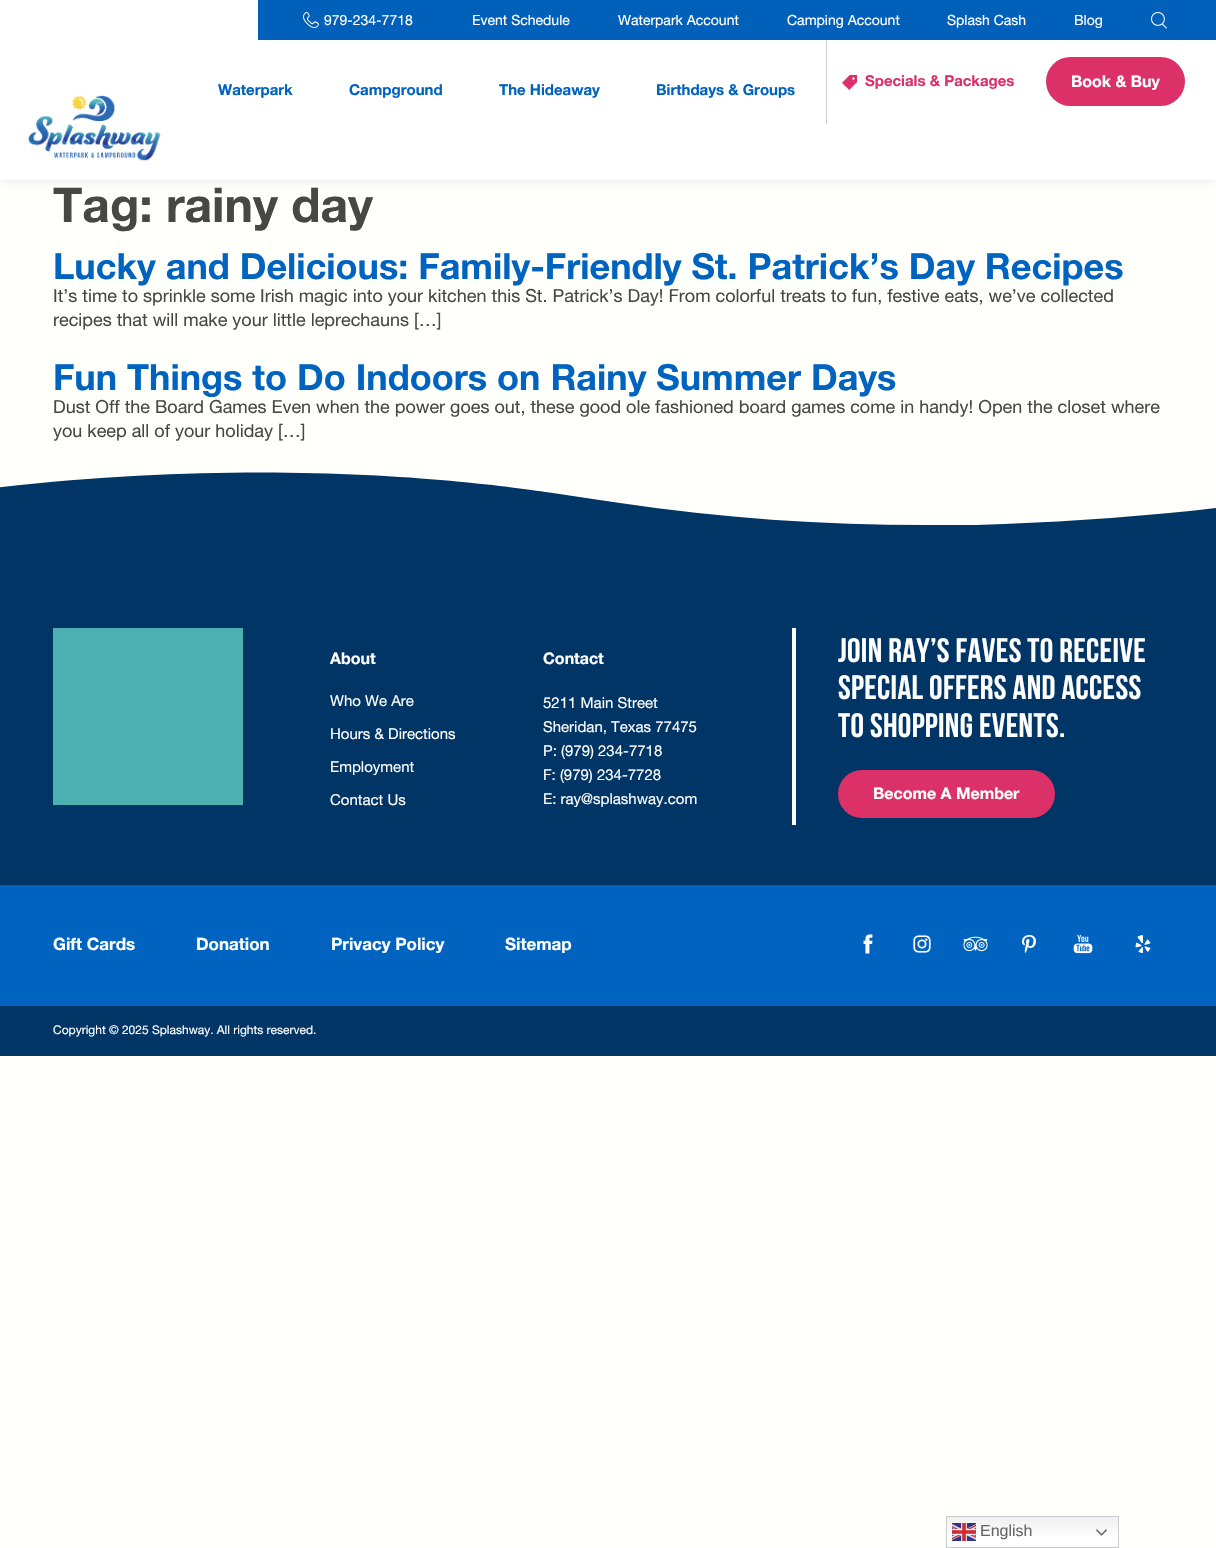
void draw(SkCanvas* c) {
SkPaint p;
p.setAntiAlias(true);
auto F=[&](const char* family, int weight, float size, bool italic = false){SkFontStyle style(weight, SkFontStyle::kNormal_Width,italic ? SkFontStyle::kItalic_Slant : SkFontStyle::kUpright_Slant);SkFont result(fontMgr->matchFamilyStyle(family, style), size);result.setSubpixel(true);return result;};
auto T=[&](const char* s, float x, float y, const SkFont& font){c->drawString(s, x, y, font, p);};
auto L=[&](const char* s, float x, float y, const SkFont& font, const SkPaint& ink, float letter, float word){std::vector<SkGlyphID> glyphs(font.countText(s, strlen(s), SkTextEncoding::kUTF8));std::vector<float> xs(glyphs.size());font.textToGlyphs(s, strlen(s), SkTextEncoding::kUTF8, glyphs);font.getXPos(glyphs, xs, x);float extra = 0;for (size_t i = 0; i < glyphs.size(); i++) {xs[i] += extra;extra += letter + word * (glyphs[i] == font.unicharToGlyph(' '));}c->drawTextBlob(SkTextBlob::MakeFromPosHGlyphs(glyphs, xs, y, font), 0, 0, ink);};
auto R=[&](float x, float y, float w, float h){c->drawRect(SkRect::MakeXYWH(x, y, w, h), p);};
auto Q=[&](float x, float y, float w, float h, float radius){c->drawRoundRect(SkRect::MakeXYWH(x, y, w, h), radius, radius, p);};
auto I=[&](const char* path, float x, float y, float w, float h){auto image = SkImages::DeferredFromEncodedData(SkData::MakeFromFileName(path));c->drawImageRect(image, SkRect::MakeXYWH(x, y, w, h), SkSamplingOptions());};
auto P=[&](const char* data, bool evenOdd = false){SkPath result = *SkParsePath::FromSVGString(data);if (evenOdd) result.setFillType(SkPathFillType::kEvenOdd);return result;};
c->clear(0xfffffffc);
p.setColor(0x1a000000);
p.setMaskFilter(SkMaskFilter::MakeBlur(kNormal_SkBlurStyle, 5));
c->drawRect(SkRect::MakeXYWH(0,0,1216,180),p);
p.setMaskFilter(nullptr);
p.setColor(0xffffffff);
R(0,0,1216,180);
p.setColor(0xff0060ba);
R(258,0,958,40);
I("1.png",303,12,16,16);
auto f1 = F("Helvetica Neue",400,14);
p.setColor(0xffffffff);
T("979-234-7718",324,25,f1);
T("Event Schedule",472,25,f1);
T("Waterpark Account",618,25,f1);
T("Camping Account",787,25,f1);
T("Splash Cash",947,25,f1);
T("Blog",1074,25,f1);
I("2.png",1151,12,16,17);
auto f2 = F("Helvetica Neue",700,15);
p.setColor(0xff0063bf);
T("Waterpark",218,95,f2);
T("Campground",349,95,f2);
T("The Hideaway",499,95,f2);
T("Birthdays & Groups",656,95,f2);
p.setColor(0xffcfcfcf);
R(826,40,1,84);
I("3.png",842,75,15,15);
p.setColor(0xffdc3069);
T("Specials & Packages",865,86,f2);
Q(1046,57,139,49,24.5);
auto f3 = F("Helvetica Neue",700,16);
p.setColor(0xffffffff);
T("Book & Buy",1071,87,f3);
I("4.png",28,95,133,66);
auto f4 = F("Helvetica Neue",700,48);
p.setColor(0xff474745);
T("Tag: rainy day",53,222,f4);
auto f5 = F("Helvetica Neue",700,36);
p.setColor(0xff0063bf);
T("Lucky and Delicious: Family-Friendly St. Patrick’s Day Recipes",53,279,f5);
auto f6 = F("Helvetica Neue",400,18);
p.setColor(0xff474745);
T("It’s time to sprinkle some Irish magic into your kitchen this St. Patrick’s Day! From colorful treats to fun, festive eats, we’ve collected",53,302,f6);
T("recipes that will make your little leprechauns […]",53,326,f6);
p.setColor(0xff0063bf);
T("Fun Things to Do Indoors on Rainy Summer Days",53,390,f5);
p.setColor(0xff474745);
T("Dust Off the Board Games Even when the power goes out, these good ole fashioned board games come in handy! Open the closet where",53,413,f6);
T("you keep all of your holiday […]",53,437,f6);
p.setColor(0xff003566);
c->drawPath(P("M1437 471c-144 32-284 47-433 53c-19 1-37 1-56 1c-113 1-221-6-328-22c-23-3-45-7-67-10c-54-8-268-39-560-5v117h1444z"),p);
R(0,605,1216,280);
p.setColor(0xff4cb0b1);
R(53,628,190,177);
p.setColor(0xffffffff);
T("About",330,664,f3);
auto f7 = F("Helvetica Neue",400,15);
T("Who We Are",330,706,f7);
T("Hours & Directions",330,739,f7);
T("Employment",330,772,f7);
T("Contact Us",330,805,f7);
T("Contact",543,664,f3);
T("5211 Main Street",543,708,f7);
T("Sheridan, Texas 77475",543,732,f7);
T("P: (979) 234-7718",543,756,f7);
T("F: (979) 234-7728",543,780,f7);
T("E: ray@splashway.com",543,804,f7);
R(792,628,4,197);
auto f8 = F("Bebas Neue",700,34);
L("Join Ray’s Faves to receive",838,662,f8,p,.35,0);
L("special offers and access",838,699,f8,p,.35,0);
L("to shopping events.",838,737,f8,p,.35,0);
p.setColor(0xffdc3069);
Q(838,770,217,48,24);
p.setColor(0xffffffff);
T("Become A Member",873,799,f3);
p.setColor(0xff0063bf);
R(0,885,1216,121);
auto f9 = F("Helvetica Neue",700,17);
p.setColor(0xffffffff);
T("Gift Cards",53,950,f9);
T("Donation",196,950,f9);
T("Privacy Policy",331,950,f9);
T("Sitemap",505,950,f9);
I("5.png",863,934,10,20);
I("6.png",913,935,18,18);
I("7.png",963,936,25,16);
I("8.png",1022,934,14,19);
I("9.png",1073,934,20,20);
I("10.png",1135,935,16,19);
p.setColor(0xff003566);
R(0,1006,1216,50);
auto f10 = F("Helvetica Neue",400,12);
p.setColor(0xffffffff);
T("Copyright © 2025 Splashway. All rights reserved.",53,1034,f10);
{
const SkColor colors[] = {0xffefefef,0xffffffff};
const float stops[] = {0,.7};
const SkPoint ends[] = {{1033,1516}, {1033,1548}};
p.setShader(SkGradientShader::MakeLinear(ends, colors, stops, 2, SkTileMode::kClamp));
p.setAlpha(255);
}
R(947,1517,171,30);
p.setStroke(true);
p.setStrokeWidth(1);
p.setShader(nullptr);
p.setColor(0xffcccccc);
c->drawRect(SkRect::MakeXYWH(946.5,1516.5,172,31),p);
I("11.png",952,1523,24,18);
auto f11 = F("Liberation Sans",400,16);
p.setStroke(false);
p.setColor(0xff666666);
T("English",980,1536,f11);
I("12.png",1096,1529,11,7);
}
